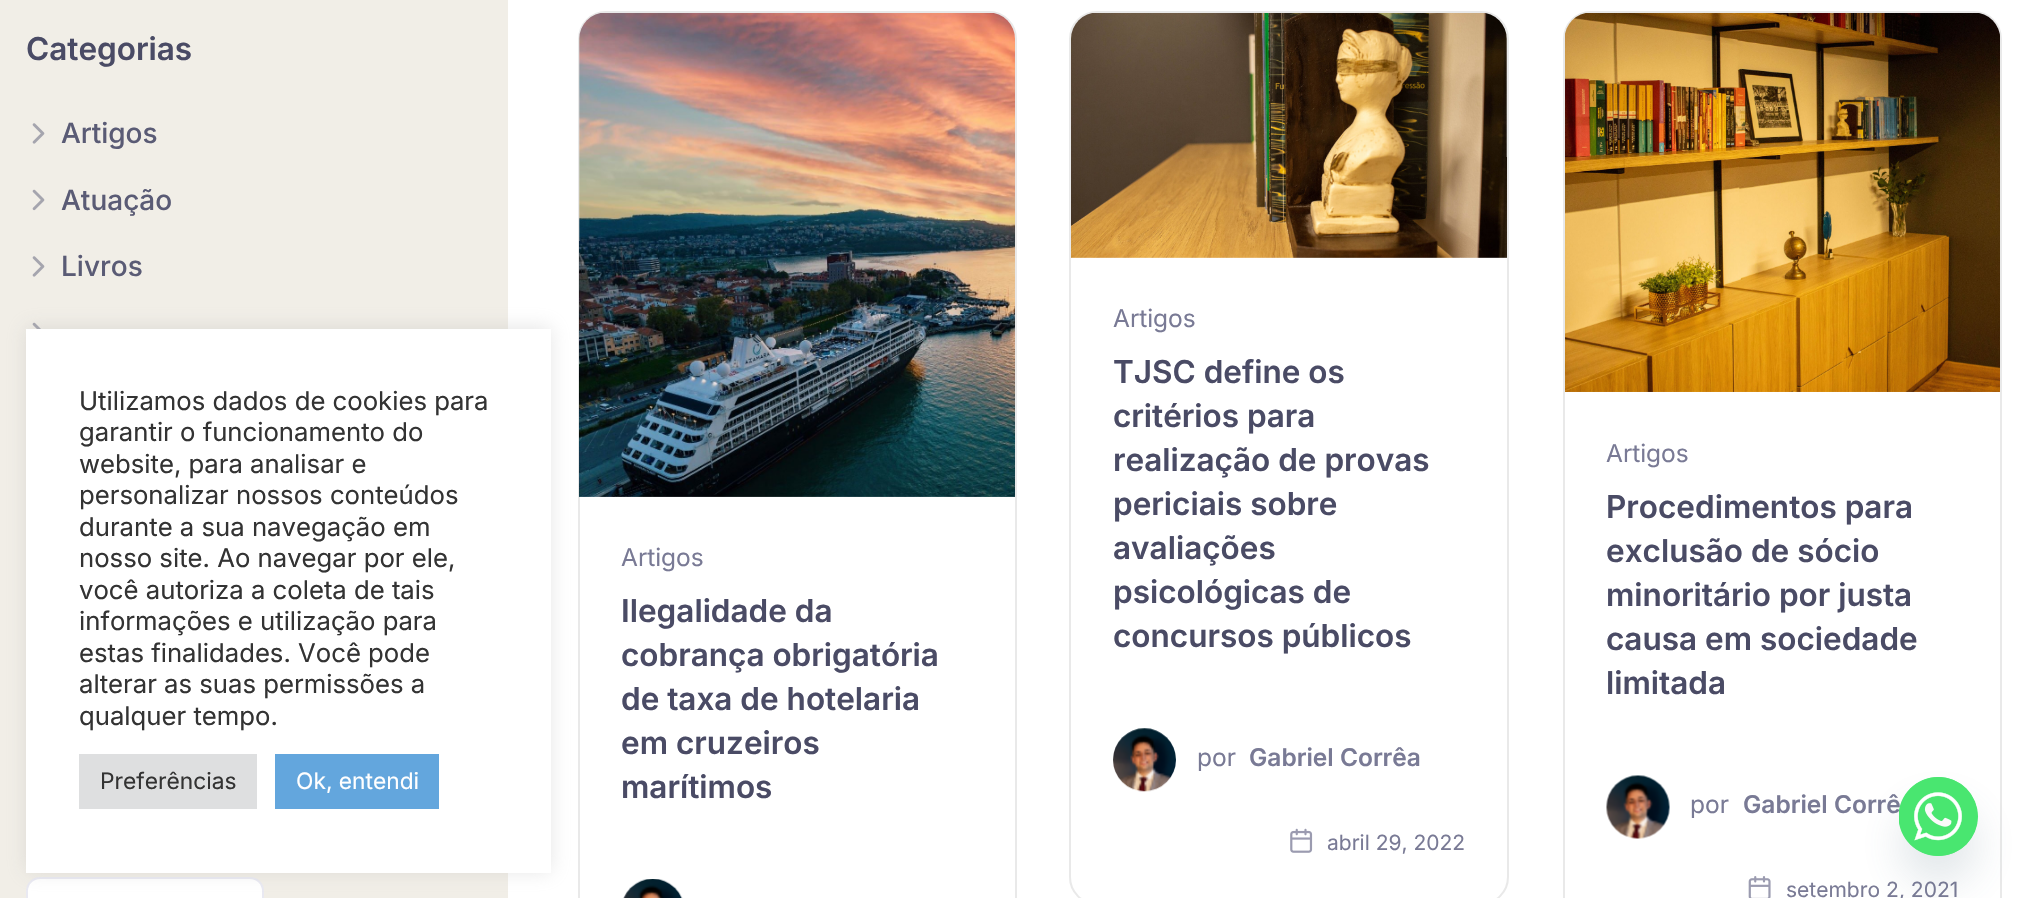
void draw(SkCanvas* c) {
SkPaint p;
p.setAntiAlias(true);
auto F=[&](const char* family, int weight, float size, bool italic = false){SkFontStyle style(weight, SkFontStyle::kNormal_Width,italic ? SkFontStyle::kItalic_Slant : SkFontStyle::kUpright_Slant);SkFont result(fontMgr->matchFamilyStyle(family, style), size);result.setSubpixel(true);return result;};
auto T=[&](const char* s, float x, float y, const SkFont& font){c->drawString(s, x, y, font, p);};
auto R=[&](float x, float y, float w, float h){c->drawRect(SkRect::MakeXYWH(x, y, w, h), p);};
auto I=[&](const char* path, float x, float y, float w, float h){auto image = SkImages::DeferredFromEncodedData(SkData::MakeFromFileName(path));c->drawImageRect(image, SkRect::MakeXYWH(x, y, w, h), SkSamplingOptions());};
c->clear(0xfff1eee7);
auto f1 = F("Inter",600,31.5);
p.setColor(0xff4a4b65);
T("Categorias",26,60,f1);
I("1.png",32,123,13,21);
auto f2 = F("Inter",500,28);
p.setColor(0xff5a5b75);
T("Artigos",61,143,f2);
I("2.png",32,189,13,22);
T("Atuação",61,210,f2);
I("1.png",32,256,13,21);
T("Livros",61,276,f2);
I("3.png",32,322,9,7);
p.setColor(0xffffffff);
c->drawRoundRect(SkRect::MakeXYWH(27,878,236,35),13,13,p);
p.setStroke(true);
p.setStrokeWidth(2);
p.setColor(0xffe9e9f2);
c->drawRoundRect(SkRect::MakeXYWH(27,878,236,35),13,13,p);
p.setStroke(false);
p.setColor(0xffffffff);
R(508,0,1520,898);
p.setStroke(true);
p.setColor(0xffe9e9e9);
c->drawRoundRect(SkRect::MakeXYWH(579,12,437,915),27,27,p);
I("4.png",579,13,436,484);
auto f3 = F("Inter",400,24.5);
p.setStroke(false);
p.setColor(0xff797a95);
T("Artigos",621,566,f3);
p.setColor(0xff4a4b65);
T("Ilegalidade da",621,622,f1);
T("cobrança obrigatória",621,666,f1);
T("de taxa de hotelaria",621,710,f1);
T("em cruzeiros",621,754,f1);
T("marítimos",621,798,f1);
I("5.png",623,879,60,19);
p.setStroke(true);
p.setColor(0xffe9e9e9);
c->drawRoundRect(SkRect::MakeXYWH(1070,12,438,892),27,27,p);
I("6.png",1071,13,436,245);
p.setStroke(false);
p.setColor(0xff797a95);
T("Artigos",1113,327,f3);
p.setColor(0xff4a4b65);
T("TJSC define os",1113,383,f1);
T("critérios para",1113,427,f1);
T("realização de provas",1113,471,f1);
T("periciais sobre",1113,515,f1);
T("avaliações",1113,559,f1);
T("psicológicas de",1113,603,f1);
T("concursos públicos",1113,647,f1);
I("7.png",1113,728,63,64);
p.setColor(0xff797a95);
T("por",1197,766,f3);
auto f4 = F("Inter",600,24.5);
T("Gabriel Corrêa",1249,766,f4);
I("8.png",1290,828,23,25);
auto f5 = F("Inter",400,21);
T("abril 29, 2022",1327,850,f5);
p.setStroke(true);
p.setColor(0xffe9e9e9);
c->drawRoundRect(SkRect::MakeXYWH(1564,12,437,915),27,27,p);
I("9.png",1565,13,435,379);
p.setStroke(false);
p.setColor(0xff797a95);
T("Artigos",1606,462,f3);
p.setColor(0xff4a4b65);
T("Procedimentos para",1606,518,f1);
T("exclusão de sócio",1606,562,f1);
T("minoritário por justa",1606,606,f1);
T("causa em sociedade",1606,650,f1);
T("limitada",1606,694,f1);
I("10.png",1606,775,64,64);
p.setColor(0xff797a95);
T("por",1690,813,f3);
T("Gabriel Corrê",1743,813,f4);
I("11.png",1748,876,23,22);
T("setembro 2, 2021",1786,897,f5);
p.setColor(0x4dacabab);
p.setMaskFilter(SkMaskFilter::MakeBlur(kNormal_SkBlurStyle, 9));
c->drawRect(SkRect::MakeXYWH(26,327,525,545),p);
p.setMaskFilter(nullptr);
p.setColor(0xffffffff);
R(26,329,525,544);
auto f6 = F("Inter",400,25.7);
p.setColor(0xff333333);
T("Utilizamos dados de cookies para",79,410,f6);
T("garantir o funcionamento do",79,441,f6);
T("website, para analisar e",79,473,f6);
T("personalizar nossos conteúdos",79,504,f6);
T("durante a sua navegação em",79,536,f6);
T("nosso site. Ao navegar por ele,",79,567,f6);
T("você autoriza a coleta de tais",79,599,f6);
T("informações e utilização para",79,630,f6);
T("estas finalidades. Você pode",79,662,f6);
T("alterar as suas permissões a",79,693,f6);
T("qualquer tempo.",79,725,f6);
p.setColor(0xffdedfe0);
R(79,754,178,55);
auto f7 = F("Inter",400,22.75);
p.setColor(0xff333333);
T("Preferências",100,789,f7);
p.setColor(0xff63a6dd);
R(275,754,164,55);
p.setColor(0xffffffff);
T("Ok, entendi",296,789,f7);
p.setColor(0x2949687e);
p.setMaskFilter(SkMaskFilter::MakeBlur(kNormal_SkBlurStyle, 21));
c->drawRoundRect(SkRect::MakeXYWH(1899,805,79,79),39.5,39.5,p);
p.setMaskFilter(nullptr);
p.setColor(0xff49e670);
c->drawCircle(1938.5,816.5,39.5,p);
I("12.png",1899,777,79,79);
}
